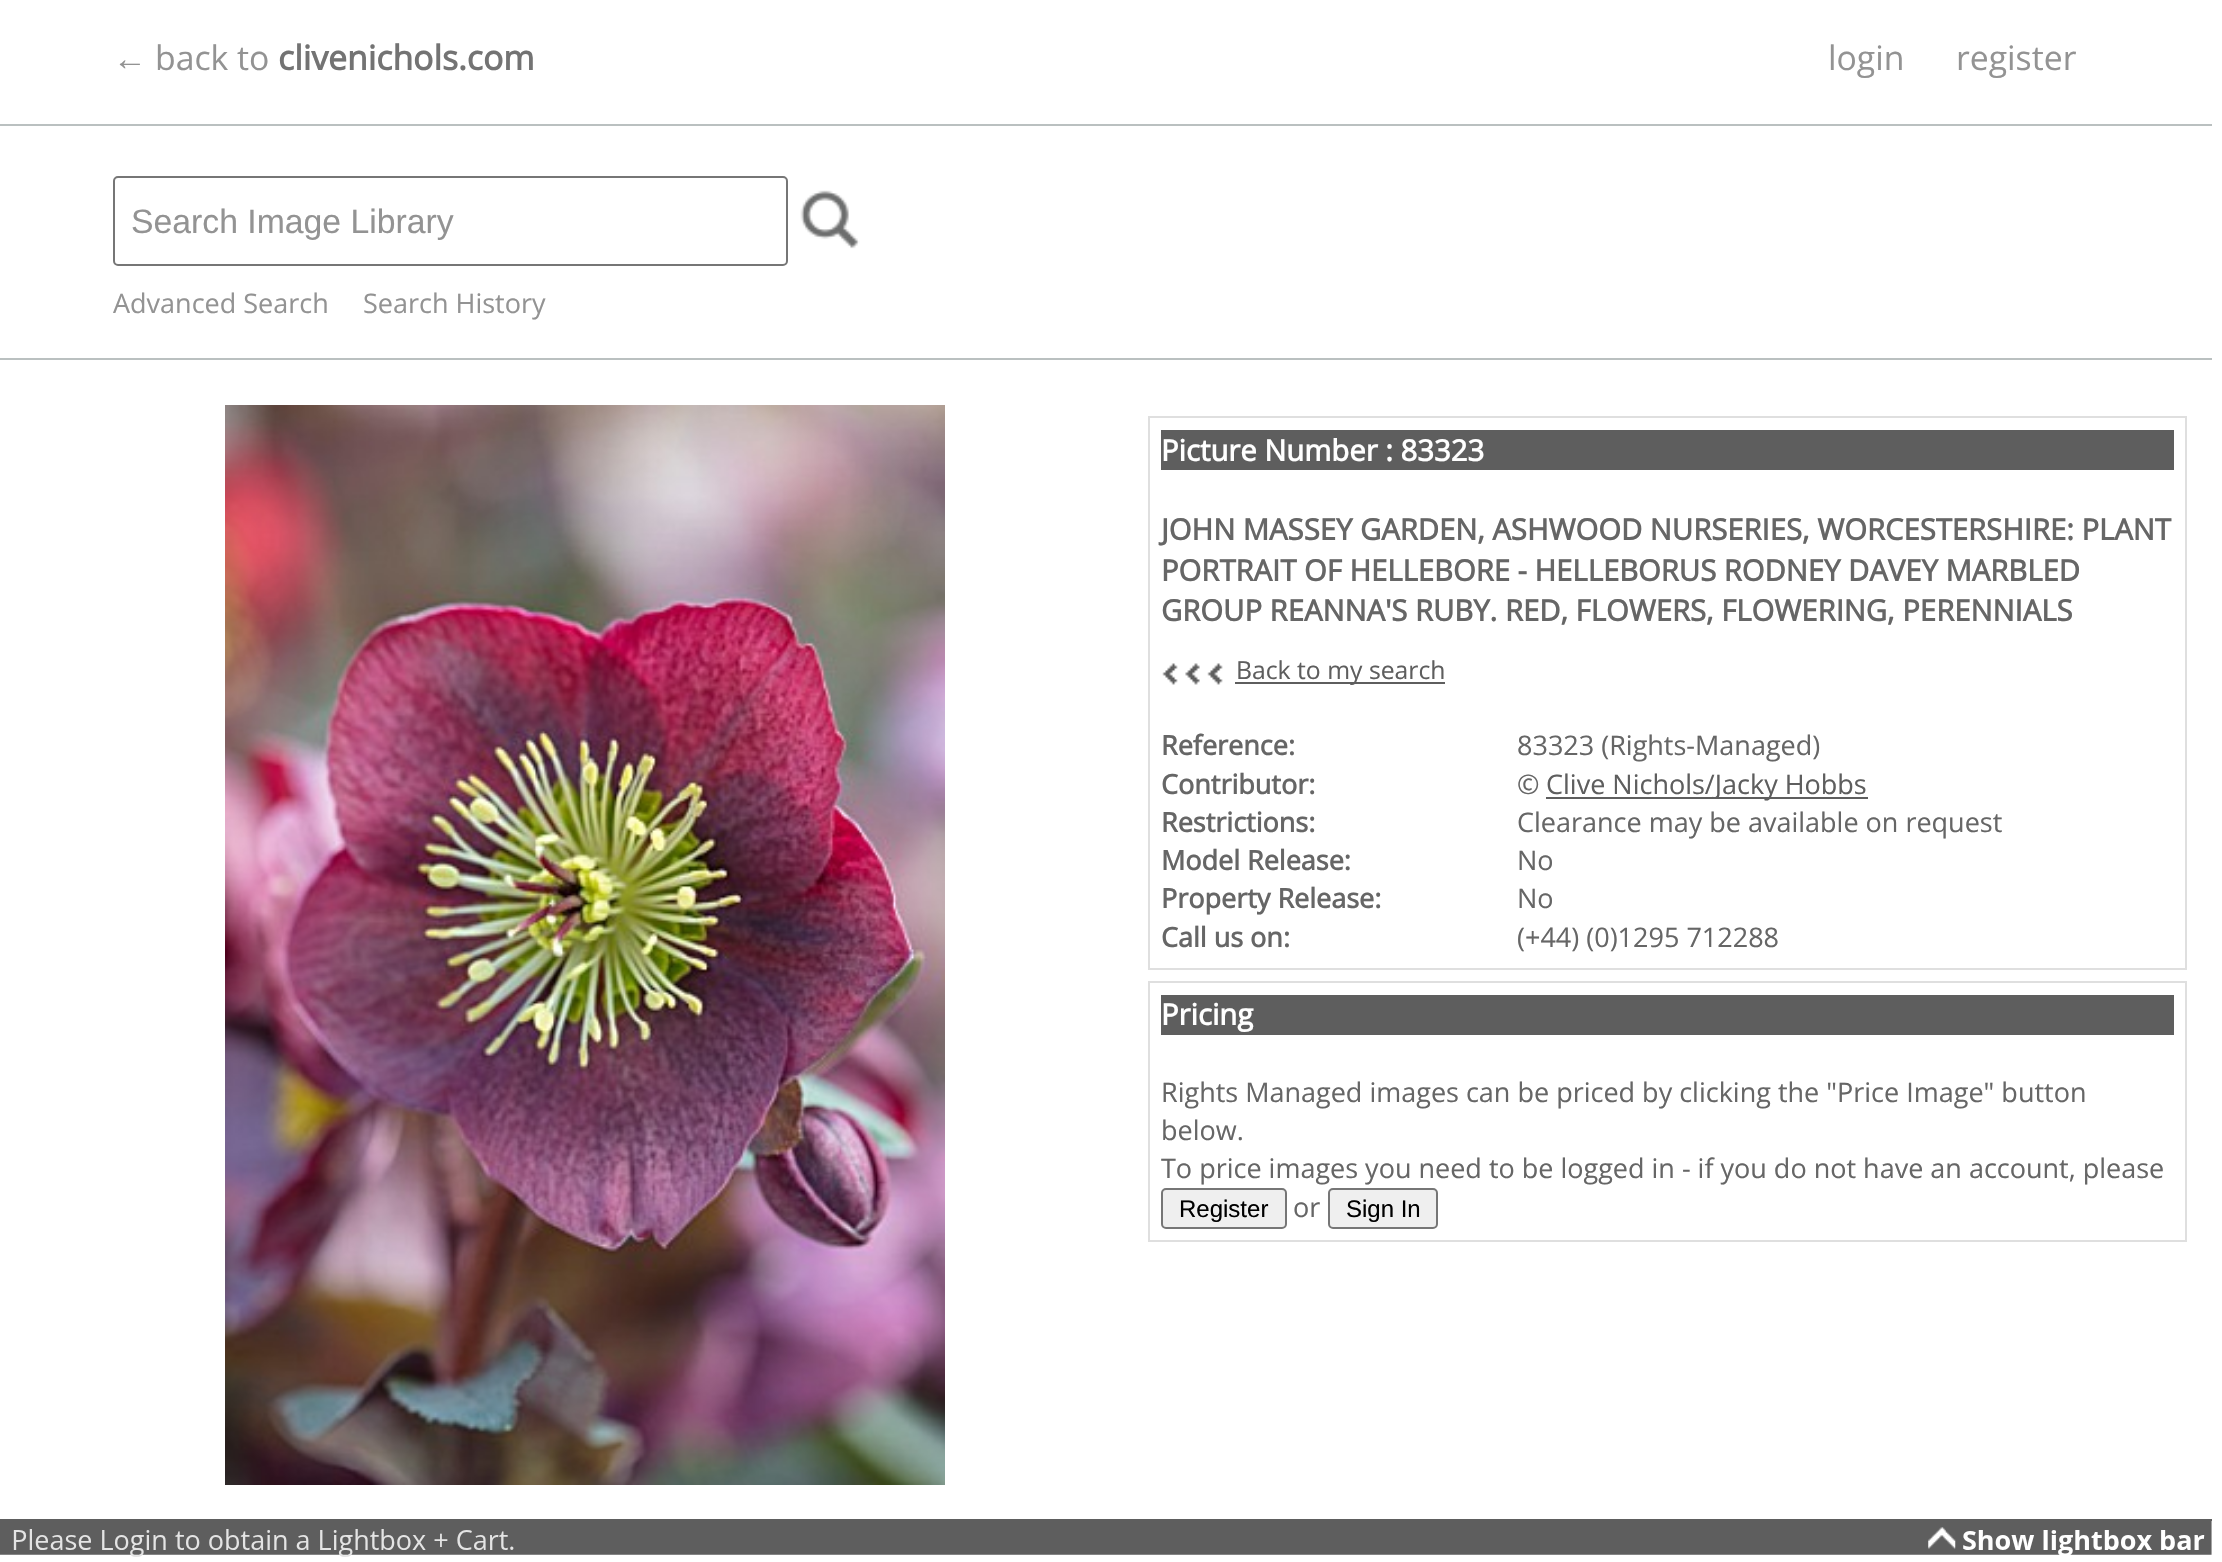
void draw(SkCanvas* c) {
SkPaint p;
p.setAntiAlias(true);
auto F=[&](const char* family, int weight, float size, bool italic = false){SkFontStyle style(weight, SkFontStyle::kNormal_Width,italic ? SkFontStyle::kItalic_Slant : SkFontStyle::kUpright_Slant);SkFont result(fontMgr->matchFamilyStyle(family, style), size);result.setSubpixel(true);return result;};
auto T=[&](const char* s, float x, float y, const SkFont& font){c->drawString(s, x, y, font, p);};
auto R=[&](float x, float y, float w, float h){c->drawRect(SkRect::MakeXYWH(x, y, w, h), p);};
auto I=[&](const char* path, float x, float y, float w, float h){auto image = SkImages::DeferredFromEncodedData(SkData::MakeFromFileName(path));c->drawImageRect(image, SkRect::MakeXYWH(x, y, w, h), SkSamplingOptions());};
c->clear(0xffffffff);
p.setColor(0xffbac0c0);
R(0,358,2212,2);
R(0,124,2212,2);
auto f1 = F("Liberation Sans",400,33.75);
p.setColor(0xff939393);
T("←",113,70,f1);
auto f2 = F("Open Sans",400,33.75);
T("back to",155,70,f2);
auto f3 = F("Open Sans",700,33.75);
p.setColor(0xff737373);
T("clivenichols.com",278,70,f3);
p.setColor(0xff939393);
T("login",1828,70,f2);
T("register",1956,70,f2);
p.setStroke(true);
p.setStrokeWidth(2);
p.setColor(0xff767676);
c->drawRoundRect(SkRect::MakeXYWH(114,177,673,88),4,4,p);
p.setStroke(false);
p.setColor(0xff939393);
T("Search Image Library",131,233,f1);
I("1.png",800,190,60,59);
auto f4 = F("Open Sans",400,27);
T("Advanced Search",113,313,f4);
T("Search History",363,313,f4);
I("2.png",225,405,720,1080);
p.setStroke(true);
p.setColor(0xffdfdfdf);
c->drawRect(SkRect::MakeXYWH(1149,417,1037,552),p);
p.setStroke(false);
p.setColor(0xff5e5e5e);
R(1161,430,1013,40);
auto f5 = F("Open Sans",700,29.25);
p.setColor(0xffffffff);
T("Picture Number : 83323",1161,461,f5);
p.setColor(0xff666666);
T("JOHN MASSEY GARDEN, ASHWOOD NURSERIES, WORCESTERSHIRE: PLANT",1161,540,f5);
T("PORTRAIT OF HELLEBORE - HELLEBORUS RODNEY DAVEY MARBLED",1161,581,f5);
T("GROUP REANNA'S RUBY. RED, FLOWERS, FLOWERING, PERENNIALS",1161,621,f5);
I("3.png",1162,663,16,22);
I("4.png",1185,663,15,22);
I("3.png",1207,663,16,22);
p.setColor(0xff5e5e5e);
R(1235,682,210,2);
auto f6 = F("Open Sans",400,24.75);
T("Back to my search",1236,679,f6);
auto f7 = F("Open Sans",700,27);
p.setColor(0xff666666);
T("Reference:",1161,755,f7);
T("83323 (Rights-Managed)",1517,755,f4);
T("Contributor:",1161,794,f7);
T("©",1517,794,f4);
p.setColor(0xff5e5e5e);
R(1546,797,322,2);
T("Clive Nichols/Jacky Hobbs",1546,794,f4);
p.setColor(0xff666666);
T("Restrictions:",1161,832,f7);
T("Clearance may be available on request",1517,832,f4);
T("Model Release:",1161,870,f7);
T("No",1517,870,f4);
T("Property Release:",1161,908,f7);
T("No",1517,908,f4);
T("Call us on:",1161,947,f7);
T("(+44) (0)1295 712288",1517,947,f4);
p.setStroke(true);
p.setColor(0xffdfdfdf);
c->drawRect(SkRect::MakeXYWH(1149,982,1037,259),p);
p.setStroke(false);
p.setColor(0xff5e5e5e);
R(1161,995,1013,40);
p.setColor(0xffffffff);
T("Pricing",1161,1025,f5);
p.setColor(0xff666666);
T("Rights Managed images can be priced by clicking the \"Price Image\" button",1161,1102,f4);
T("below.",1161,1140,f4);
T("To price images you need to be logged in - if you do not have an account, please",1161,1178,f4);
p.setColor(0xffefefef);
c->drawRoundRect(SkRect::MakeXYWH(1162,1189,124,39),4,4,p);
p.setStroke(true);
p.setColor(0xff767676);
c->drawRoundRect(SkRect::MakeXYWH(1162,1189,124,39),4,4,p);
auto f8 = F("Liberation Sans",400,24);
p.setStroke(false);
p.setColor(0xff000000);
T("Register",1179,1217,f8);
p.setColor(0xff666666);
T("or",1293,1217,f4);
p.setColor(0xffefefef);
c->drawRoundRect(SkRect::MakeXYWH(1329,1189,108,39),4,4,p);
p.setStroke(true);
p.setColor(0xff767676);
c->drawRoundRect(SkRect::MakeXYWH(1329,1189,108,39),4,4,p);
p.setStroke(false);
p.setColor(0xff000000);
T("Sign In",1346,1217,f8);
p.setColor(0xff5e5e5e);
R(0,1519,2212,2);
I("5.png",0,1521,2212,36);
}
